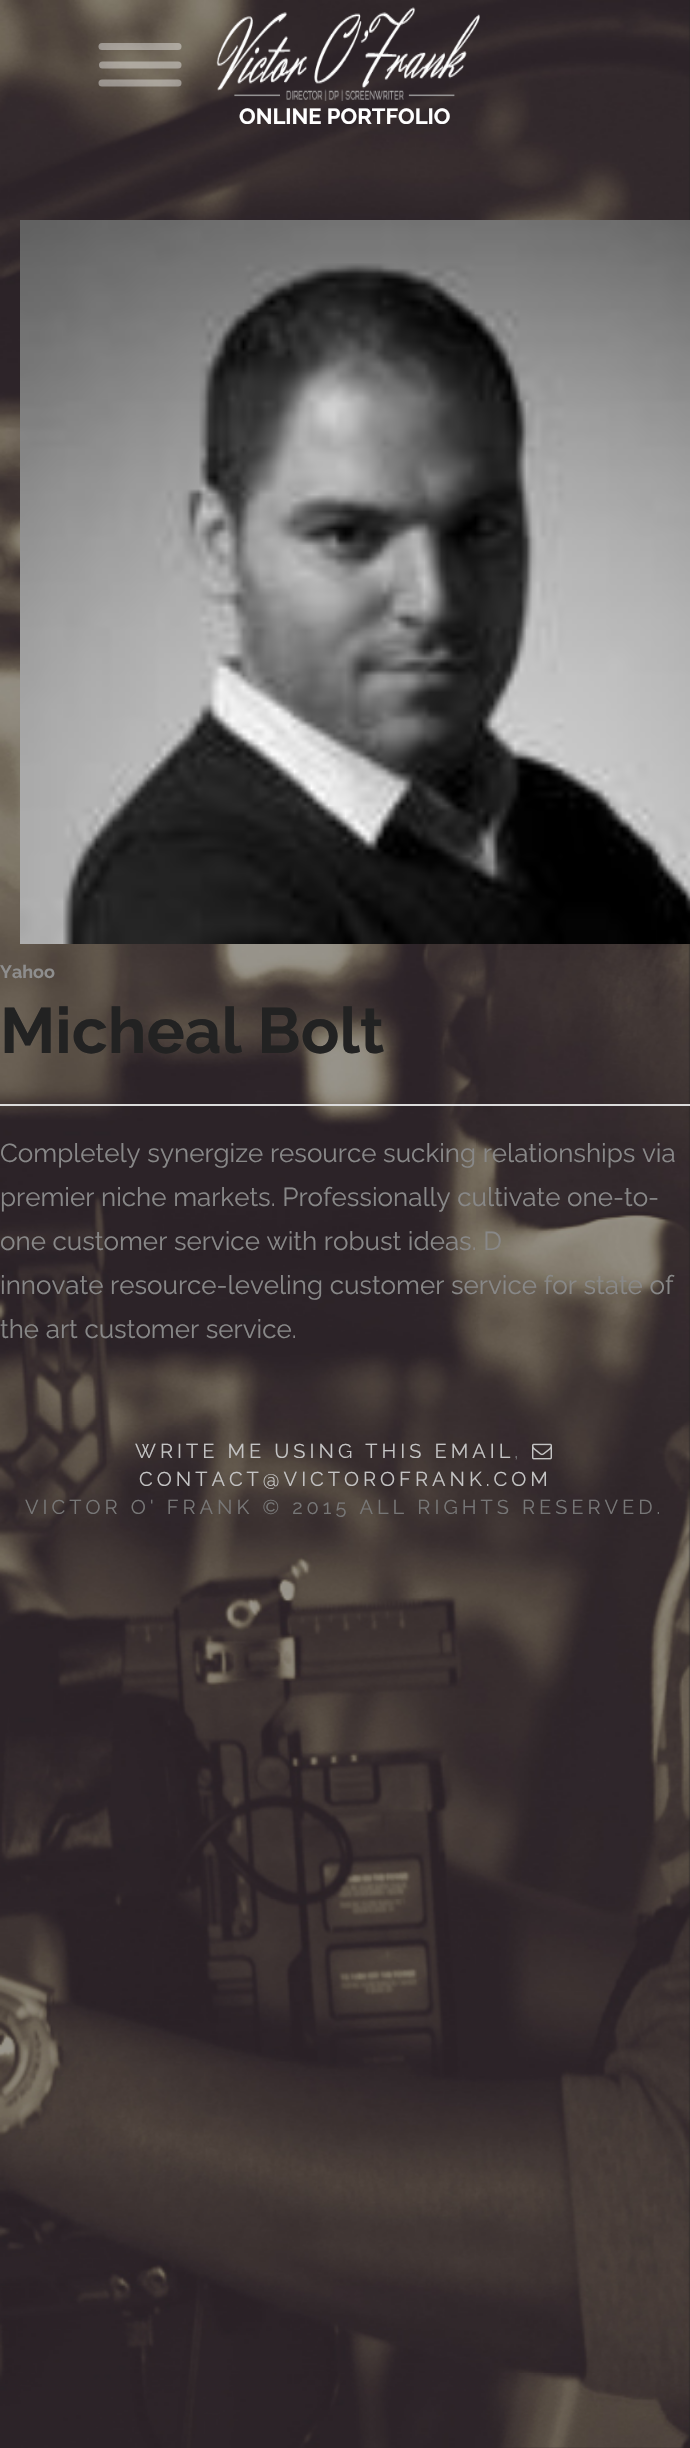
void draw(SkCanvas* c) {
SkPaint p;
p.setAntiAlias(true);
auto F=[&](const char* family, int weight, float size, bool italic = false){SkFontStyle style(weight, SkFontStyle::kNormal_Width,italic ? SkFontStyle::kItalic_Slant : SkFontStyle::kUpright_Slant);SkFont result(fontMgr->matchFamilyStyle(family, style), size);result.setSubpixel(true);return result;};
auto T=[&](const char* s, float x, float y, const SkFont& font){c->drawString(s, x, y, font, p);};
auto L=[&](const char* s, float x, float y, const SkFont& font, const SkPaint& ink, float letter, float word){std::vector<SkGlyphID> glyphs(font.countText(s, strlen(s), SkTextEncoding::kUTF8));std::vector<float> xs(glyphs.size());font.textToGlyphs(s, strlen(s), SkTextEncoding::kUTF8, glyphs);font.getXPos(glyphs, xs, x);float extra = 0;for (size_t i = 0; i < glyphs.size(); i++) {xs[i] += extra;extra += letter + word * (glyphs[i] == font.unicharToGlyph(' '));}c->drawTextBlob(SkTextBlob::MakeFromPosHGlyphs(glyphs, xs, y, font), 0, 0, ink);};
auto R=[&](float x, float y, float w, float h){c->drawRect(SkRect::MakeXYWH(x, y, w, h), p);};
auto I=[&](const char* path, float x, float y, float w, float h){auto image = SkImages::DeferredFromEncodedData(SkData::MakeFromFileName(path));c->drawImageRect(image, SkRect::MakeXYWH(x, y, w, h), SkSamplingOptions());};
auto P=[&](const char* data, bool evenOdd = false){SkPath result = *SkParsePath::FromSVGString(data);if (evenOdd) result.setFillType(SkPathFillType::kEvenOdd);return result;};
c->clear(0xff222222);
I("1.png",0,0,690,2448);
p.setStroke(true);
p.setStrokeWidth(7);
p.setStrokeCap(SkPaint::kRound_Cap);
p.setColor(0x66ffffff);
c->drawPath(P("M102 46.5h76"),p);
c->drawPath(P("M102.5 65h75.5"),p);
c->drawPath(P("M102 83h76"),p);
I("2.png",216,7,264,94);
auto f1 = F("Raleway",700,22);
p.setStroke(false);
p.setColor(0xffffffff);
T("ONLINE PORTFOLIO",239,124,f1);
I("3.png",20,220,670,724);
auto f2 = F("Raleway",700,18);
p.setColor(0xff8e8e8e);
T("Yahoo",0,978,f2);
p.setColor(0xffdbdbdb);
R(0,1104,690,2);
auto f3 = F("Raleway",700,64);
p.setColor(0xff222222);
T("Micheal Bolt",0,1053,f3);
auto f4 = F("Raleway",400,26);
p.setColor(0xff888888);
T("Completely synergize resource sucking relationships via",0,1162,f4);
T("premier niche markets. Professionally cultivate one-to-",0,1206,f4);
T("one customer service with robust ideas. D",0,1250,f4);
T("innovate resource-leveling customer service for state of",0,1294,f4);
T("the art customer service.",0,1338,f4);
auto f5 = F("Raleway",400,20);
p.setColor(0xffc4c4c4);
L("WRITE ME USING THIS EMAIL",135,1458,f5,p,4,0);
p.setColor(0xff777777);
L(",",514,1458,f5,p,4,0);
I("4.png",532,1443,20,17);
p.setColor(0xffc4c4c4);
L("CONTACT@VICTOROFRANK.COM",139,1486,f5,p,4,0);
p.setColor(0xff777777);
L("VICTOR O' FRANK © 2015 ALL RIGHTS RESERVED.",25,1514,f5,p,4,0);
}
